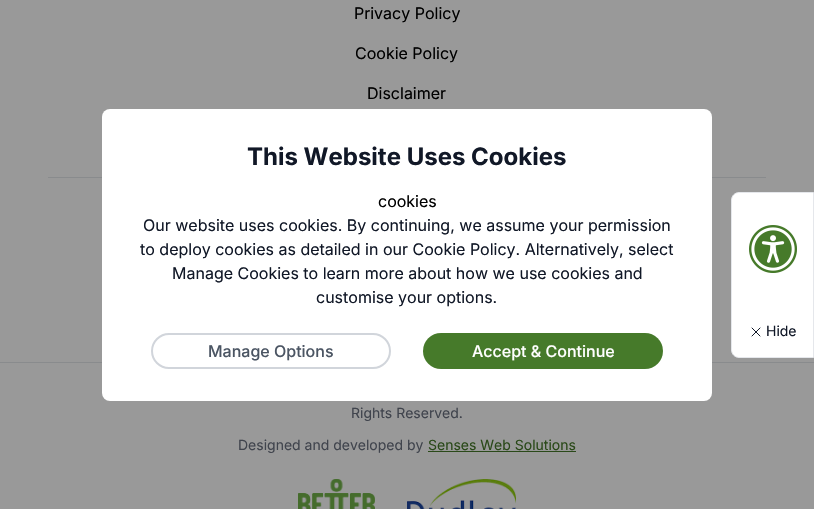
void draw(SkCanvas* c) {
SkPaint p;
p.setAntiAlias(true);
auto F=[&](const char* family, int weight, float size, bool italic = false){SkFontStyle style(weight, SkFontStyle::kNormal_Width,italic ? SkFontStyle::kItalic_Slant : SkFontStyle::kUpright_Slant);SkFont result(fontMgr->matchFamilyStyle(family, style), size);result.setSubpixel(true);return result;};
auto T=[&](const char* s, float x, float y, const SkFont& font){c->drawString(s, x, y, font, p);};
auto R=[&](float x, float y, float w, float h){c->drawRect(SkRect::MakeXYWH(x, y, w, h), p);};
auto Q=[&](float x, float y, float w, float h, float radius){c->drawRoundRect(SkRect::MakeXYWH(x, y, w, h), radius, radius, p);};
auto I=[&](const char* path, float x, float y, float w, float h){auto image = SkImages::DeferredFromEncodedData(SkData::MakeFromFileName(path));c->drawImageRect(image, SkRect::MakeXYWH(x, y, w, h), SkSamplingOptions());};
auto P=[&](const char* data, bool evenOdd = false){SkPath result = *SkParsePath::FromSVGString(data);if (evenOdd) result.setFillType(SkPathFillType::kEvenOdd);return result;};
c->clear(0xff999999);
auto f1 = F("Inter",400,16);
p.setColor(0xff000000);
T("Privacy Policy",354,19,f1);
T("Cookie Policy",355,59,f1);
T("Disclaimer",367,99,f1);
p.setColor(0xff898b8d);
R(48,177,718,1);
R(0,362,814,1);
auto f2 = F("Inter",400,14);
p.setColor(0xff40444d);
T("Rights Reserved.",351,418,f2);
T("Designed and developed by",238,450,f2);
p.setColor(0xff2a4919);
T("Senses Web Solutions",428,450,f2);
R(428,451,148,1);
I("1.png",298,479,77,30);
I("2.png",407,479,109,30);
p.setColor(0xffffffff);
Q(102,109,610,292,8);
auto f3 = F("Inter",700,24);
p.setColor(0xff111827);
T("This Website Uses Cookies",247,165,f3);
p.setColor(0xff000000);
T("cookies",378,207,f1);
p.setColor(0xff111827);
T("Our website uses cookies. By continuing, we assume your permission",143,231,f1);
T("to deploy cookies as detailed in our Cookie Policy. Alternatively, select",140,255,f1);
T("Manage Cookies to learn more about how we use cookies and",172,279,f1);
T("customise your options.",316,303,f1);
p.setStroke(true);
p.setStrokeWidth(2);
p.setColor(0xffd1d5db);
c->drawRoundRect(SkRect::MakeXYWH(152,334,238,34),17,17,p);
auto f4 = F("Inter",500,16);
p.setStroke(false);
p.setColor(0xff4b5563);
T("Manage Options",208,357,f4);
p.setColor(0xff467a2a);
Q(423,333,240,36,18);
p.setColor(0xffffffff);
T("Accept & Continue",472,357,f4);
c->drawPath(P("M739 192.5h74.5v165h-74.5c-4 0-7.5-3.5-7.5-7.5v-150c0-4 3.5-7.5 7.5-7.5z"),p);
p.setStroke(true);
p.setStrokeWidth(1);
p.setColor(0xffe5e7eb);
c->drawPath(P("M739 192.5h74.5v165h-74.5c-4 0-7.5-3.5-7.5-7.5v-150c0-4 3.5-7.5 7.5-7.5z"),p);
I("3.png",749,225,48,48);
p.setStrokeCap(SkPaint::kRound_Cap);
p.setStrokeJoin(SkPaint::kRound_Join);
p.setColor(0xff111827);
c->drawPath(P("M752 336l8-8m-8 0l8 8"),p);
p.setStroke(false);
T("Hide",766,336,f2);
}
